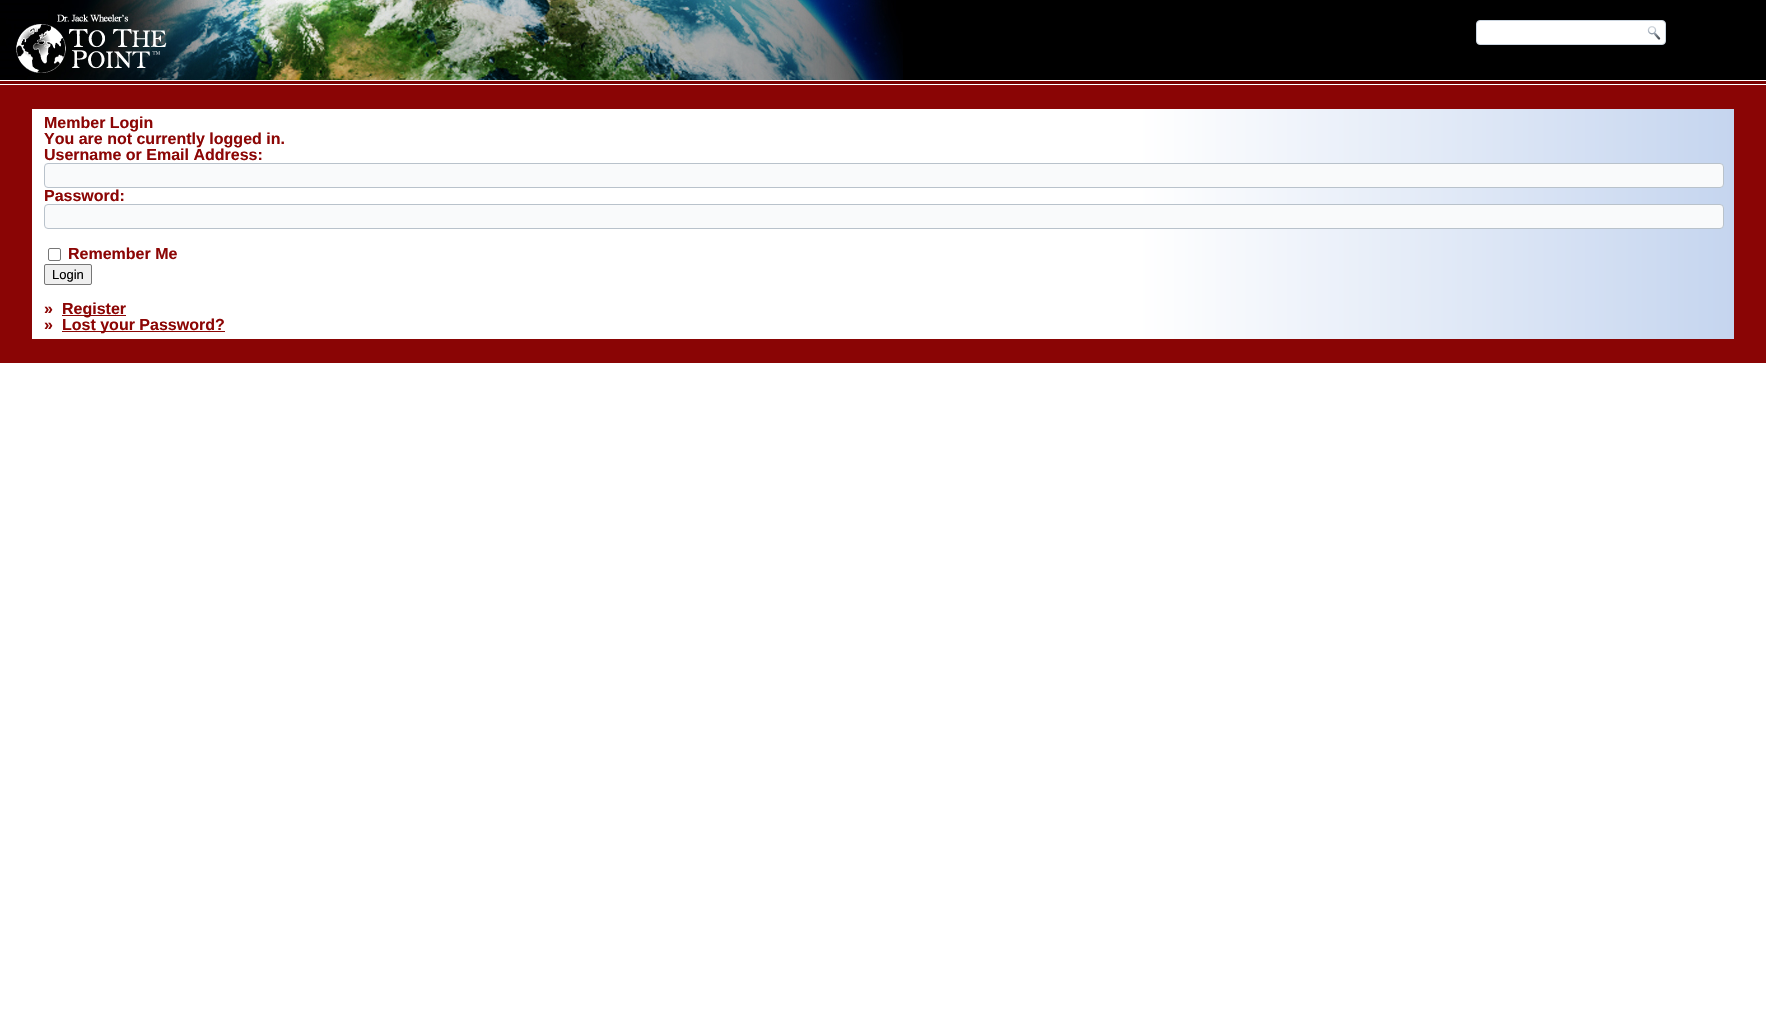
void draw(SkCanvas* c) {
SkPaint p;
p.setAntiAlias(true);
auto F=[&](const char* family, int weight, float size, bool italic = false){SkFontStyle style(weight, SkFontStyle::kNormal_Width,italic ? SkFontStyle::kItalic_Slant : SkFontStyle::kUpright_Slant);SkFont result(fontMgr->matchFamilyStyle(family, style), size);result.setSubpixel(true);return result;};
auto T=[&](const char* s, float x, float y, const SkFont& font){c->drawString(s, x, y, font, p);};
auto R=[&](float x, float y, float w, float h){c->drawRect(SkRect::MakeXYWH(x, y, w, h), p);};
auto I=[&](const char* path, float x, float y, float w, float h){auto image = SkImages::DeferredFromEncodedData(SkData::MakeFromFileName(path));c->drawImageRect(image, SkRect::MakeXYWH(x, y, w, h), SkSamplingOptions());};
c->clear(0xffffffff);
I("1.png",0,0,1766,84);
I("2.png",16,14,151,59);
p.setColor(0xffffffff);
c->drawRoundRect(SkRect::MakeXYWH(1476.5,20.5,189,24),3.5,3.5,p);
p.setStroke(true);
p.setStrokeWidth(1);
p.setColor(0xffccd6e0);
c->drawRoundRect(SkRect::MakeXYWH(1476.5,20.5,189,24),3.5,3.5,p);
I("3.png",1647,26,14,14);
p.setStroke(false);
p.setColor(0xff8a0505);
R(0,85,1766,278);
{
const SkColor colors[] = {0xffffffff,0xffc5d5ef};
const float stops[] = {.65,1};
const SkPoint ends[] = {{32,224}, {1734,224}};
p.setShader(SkGradientShader::MakeLinear(ends, colors, stops, 2, SkTileMode::kClamp));
p.setAlpha(255);
}
R(32,109,1702,230);
auto f1 = F("Liberation Sans",700,16);
p.setShader(nullptr);
p.setColor(0xff8c0605);
T("Member Login",44,128,f1);
T("You are not currently logged in.",44,144,f1);
T("Username or Email Address:",44,160,f1);
p.setColor(0xfff9fafb);
c->drawRoundRect(SkRect::MakeXYWH(44.5,163.5,1679,24),3.5,3.5,p);
p.setStroke(true);
p.setColor(0xffb9c2cb);
c->drawRoundRect(SkRect::MakeXYWH(44.5,163.5,1679,24),3.5,3.5,p);
p.setStroke(false);
p.setColor(0xff8c0605);
T("Password:",44,201,f1);
p.setColor(0xfff9fafb);
c->drawRoundRect(SkRect::MakeXYWH(44.5,204.5,1679,24),3.5,3.5,p);
p.setStroke(true);
p.setColor(0xffb9c2cb);
c->drawRoundRect(SkRect::MakeXYWH(44.5,204.5,1679,24),3.5,3.5,p);
p.setColor(0xff767676);
c->drawRoundRect(SkRect::MakeXYWH(48.5,248.5,12,12),1.5,1.5,p);
p.setStroke(false);
p.setColor(0xff8c0605);
T("Remember Me",68,259,f1);
p.setColor(0xffefefef);
c->drawRoundRect(SkRect::MakeXYWH(44.5,264.5,47,20),1.5,1.5,p);
p.setStroke(true);
p.setColor(0xff767676);
c->drawRoundRect(SkRect::MakeXYWH(44.5,264.5,47,20),1.5,1.5,p);
auto f2 = F("Liberation Sans",400,13);
p.setStroke(false);
p.setColor(0xff000000);
T("Login",52,279,f2);
p.setColor(0xff8c0605);
T("»",44,314,f1);
R(62,315,64,1);
T("Register",62,314,f1);
T("»",44,330,f1);
R(62,331,163,1);
T("Lost your Password?",62,330,f1);
}
